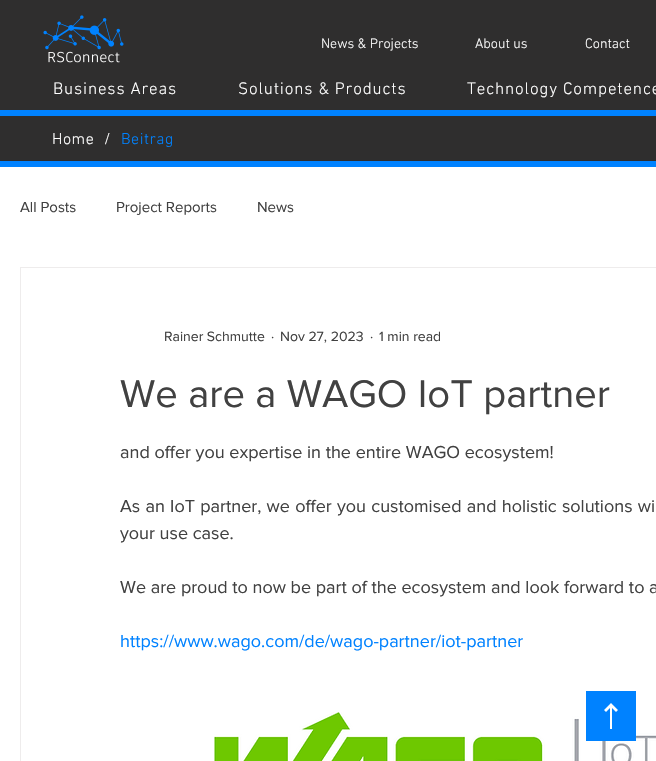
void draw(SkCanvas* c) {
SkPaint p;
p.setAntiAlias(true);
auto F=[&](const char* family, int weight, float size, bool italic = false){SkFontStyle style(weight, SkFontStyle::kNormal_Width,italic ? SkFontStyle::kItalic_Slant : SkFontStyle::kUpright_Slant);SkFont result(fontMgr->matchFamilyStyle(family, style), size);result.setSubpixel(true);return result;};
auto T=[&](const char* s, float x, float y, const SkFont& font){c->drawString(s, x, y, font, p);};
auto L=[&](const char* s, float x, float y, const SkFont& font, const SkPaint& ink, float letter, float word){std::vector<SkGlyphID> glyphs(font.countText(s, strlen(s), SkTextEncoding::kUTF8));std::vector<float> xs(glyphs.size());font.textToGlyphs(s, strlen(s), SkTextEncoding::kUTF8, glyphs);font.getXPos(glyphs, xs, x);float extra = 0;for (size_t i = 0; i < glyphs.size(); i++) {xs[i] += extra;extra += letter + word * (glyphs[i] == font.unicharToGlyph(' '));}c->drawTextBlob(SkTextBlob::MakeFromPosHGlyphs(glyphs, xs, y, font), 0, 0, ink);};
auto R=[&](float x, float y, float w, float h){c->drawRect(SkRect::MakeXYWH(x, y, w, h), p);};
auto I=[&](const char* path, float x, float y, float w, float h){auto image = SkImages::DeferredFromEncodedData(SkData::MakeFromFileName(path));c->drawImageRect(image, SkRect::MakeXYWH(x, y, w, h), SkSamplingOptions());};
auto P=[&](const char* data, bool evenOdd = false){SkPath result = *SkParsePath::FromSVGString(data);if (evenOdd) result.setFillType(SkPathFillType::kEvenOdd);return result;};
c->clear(0xff2f2e2e);
I("1.png",43,15,81,48);
auto f1 = F("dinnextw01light",300,14);
p.setColor(0xffffffff);
T("News & Projects",321,48,f1);
T("About us",475,48,f1);
T("Contact",585,48,f1);
auto f2 = F("dinnextw01light",300,17);
L("Business Areas",53,94,f2,p,.85,0);
L("Solutions & Products",238,94,f2,p,.85,0);
L("Technology Competence",467,94,f2,p,.85,0);
p.setColor(0xff0082ff);
R(0,110,656,6);
auto f3 = F("dinnextw01light",300,16);
p.setColor(0xffffffff);
L("Home",52,144,f3,p,.5,0);
T("/",104,144,f3);
p.setColor(0xff0082ff);
L("Beitrag",121,144,f3,p,.5,0);
R(0,161,656,6);
p.setColor(0xffffffff);
R(0,167,656,594);
auto f4 = F("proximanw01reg",400,15);
p.setColor(0xff414141);
T("All Posts",20,212,f4);
T("Project Reports",116,212,f4);
T("News",257,212,f4);
p.setStroke(true);
p.setStrokeWidth(1);
p.setColor(0xffeeecec);
c->drawRect(SkRect::MakeXYWH(20.5,267.5,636,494),p);
auto f5 = F("proximanw01reg",400,14);
p.setStroke(false);
p.setColor(0xff414141);
T("Rainer Schmutte",164,341,f5);
T("·",271,341,f5);
T("Nov 27, 2023",280,341,f5);
T("·",370,341,f5);
T("1 min read",379,341,f5);
auto f6 = F("proximanw01reg",400,40);
T("We are a WAGO IoT partner",120,407,f6);
auto f7 = F("proximanw01reg",400,18);
T("and offer you expertise in the entire WAGO ecosystem!",120,458,f7);
L("As an IoT partner, we offer you customised and holistic solutions wi",120,512,f7,p,0,.6);
T("your use case.",120,539,f7);
T("We are proud to now be part of the ecosystem and look forward to a",120,593,f7);
p.setColor(0xff0082ff);
T("https://www.wago.com/de/wago-partner/iot-partner",120,647,f7);
I("2.png",214,712,442,49);
c->drawPath(P("M586 691v50h50v-50zm30 21l-4-4v21h-2v-21l-4 4l-2-2l7-7l7 7z"),p);
}
